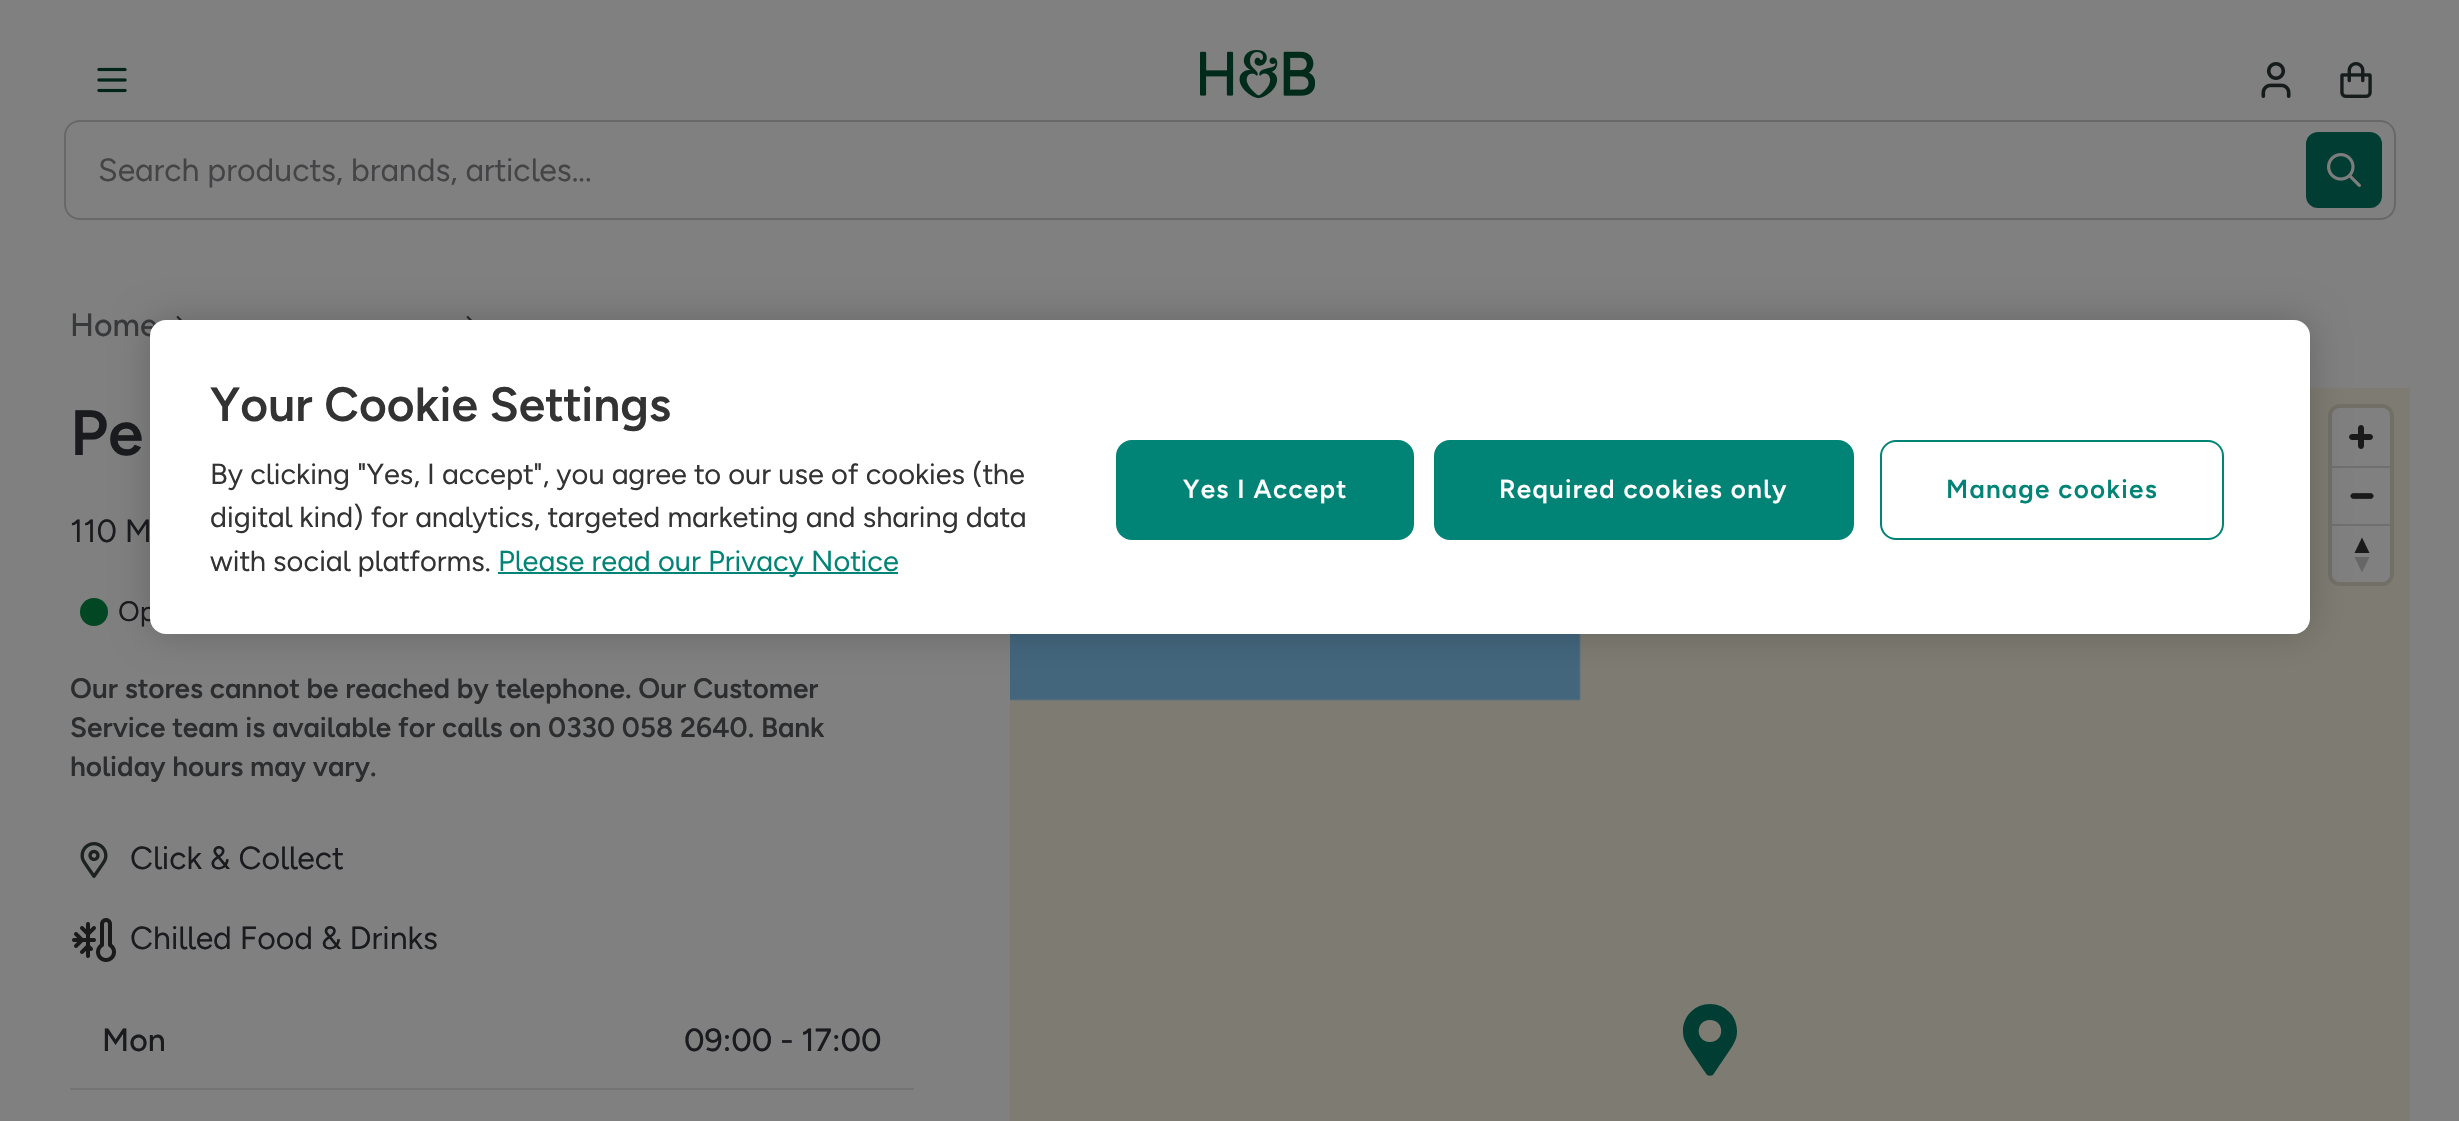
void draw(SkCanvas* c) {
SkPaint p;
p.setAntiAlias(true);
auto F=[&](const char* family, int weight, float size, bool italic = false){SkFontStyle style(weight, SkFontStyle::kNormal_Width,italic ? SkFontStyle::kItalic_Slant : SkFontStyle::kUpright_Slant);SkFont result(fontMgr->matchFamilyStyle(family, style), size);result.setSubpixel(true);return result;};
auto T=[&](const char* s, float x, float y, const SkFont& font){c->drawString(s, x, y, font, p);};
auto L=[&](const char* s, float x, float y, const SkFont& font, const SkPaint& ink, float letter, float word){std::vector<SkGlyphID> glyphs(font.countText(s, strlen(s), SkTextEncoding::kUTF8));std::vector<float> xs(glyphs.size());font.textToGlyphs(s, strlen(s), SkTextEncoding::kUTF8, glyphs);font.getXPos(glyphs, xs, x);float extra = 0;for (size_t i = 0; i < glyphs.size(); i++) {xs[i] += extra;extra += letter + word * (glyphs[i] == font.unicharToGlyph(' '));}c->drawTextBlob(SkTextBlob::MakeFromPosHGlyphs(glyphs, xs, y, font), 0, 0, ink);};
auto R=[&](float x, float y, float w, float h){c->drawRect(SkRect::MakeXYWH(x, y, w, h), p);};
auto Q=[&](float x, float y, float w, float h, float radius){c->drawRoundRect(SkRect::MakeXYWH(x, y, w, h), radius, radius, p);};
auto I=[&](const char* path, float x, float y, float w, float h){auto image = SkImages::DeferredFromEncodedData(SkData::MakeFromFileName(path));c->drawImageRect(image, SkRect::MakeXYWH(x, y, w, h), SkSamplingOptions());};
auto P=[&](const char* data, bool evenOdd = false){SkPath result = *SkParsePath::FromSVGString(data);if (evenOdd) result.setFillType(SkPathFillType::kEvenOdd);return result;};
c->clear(0xff808080);
I("1.png",97,67,30,26);
I("2.png",1200,50,115,48);
I("3.png",2261,62,30,36);
I("4.png",2340,62,32,36);
p.setColor(0xff686869);
c->drawPath(P("M80 120h2226v100h-2226c-9 0-16-7-16-16v-68c0-9 7-16 16-16zm0 2h2226v96h-2226c-8 0-14-6-14-14v-68c0-8 6-14 14-14z",true),p);
auto f1 = F("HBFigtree",400,32);
p.setColor(0xff444446);
T("Search products, brands, articles...",98,181,f1);
p.setColor(0xff686869);
c->drawPath(P("M2306 120h74c9 0 16 7 16 16v68c0 9-7 16-16 16h-74zm0 2h74c8 0 14 6 14 14v68c0 8-6 14-14 14h-74z",true),p);
p.setColor(0xff013d33);
Q(2306,132,76,76,12);
I("5.png",2327,153,34,34);
auto f2 = F("HBFigtree",500,32);
p.setColor(0xff38393b);
T("Home",70,336,f2);
I("6.png",176,316,6,4);
I("6.png",466,316,6,4);
auto f3 = F("HBFigtree",600,64);
p.setColor(0xff1a1b1e);
T("Pe",70,455,f3);
T("110 M",70,542,f1);
p.setColor(0xff024724);
c->drawCircle(94,612,14,p);
auto f4 = F("HBFigtree",400,28);
p.setColor(0xff1a1b1e);
T("Op",118,621,f4);
auto f5 = F("HBFigtree",600,28);
p.setColor(0xff2c2d2f);
T("Our stores cannot be reached by telephone. Our Customer",70,698,f5);
T("Service team is available for calls on 0330 058 2640. Bank",70,737,f5);
T("holiday hours may vary.",70,776,f5);
I("7.png",80,842,28,36);
p.setColor(0xff1a1b1e);
T("Click & Collect",130,869,f1);
I("8.png",72,918,44,44);
T("Chilled Food & Drinks",130,949,f1);
p.setColor(0xff747474);
R(70,1088,844,2);
p.setColor(0xff1a1b1e);
T("Mon",102,1051,f2);
T("09:00 - 17:00",684,1051,f2);
I("9.png",1010,388,1400,733);
p.setColor(0xff013d33);
c->drawPath(P("M1710 1004c-15 0-27 12-27 27c0 11 4 14 24 44c2 1 4 1 6 0c20-30 24-33 24-44c0-15-12-27-27-27zm0 38c-15 0-15-22 0-22c15 0 15 22 0 22z"),p);
p.setStroke(true);
p.setStrokeWidth(4);
p.setColor(0xff726f67);
c->drawRoundRect(SkRect::MakeXYWH(2330,406,62,178),10,10,p);
p.setStroke(false);
p.setColor(0xff808080);
Q(2332,408,58,174,8);
I("10.png",2349,425,24,24);
p.setColor(0xff6f6f6f);
R(2332,466,58,2);
I("11.png",2350,493,24,6);
R(2332,524,58,2);
p.setColor(0xff1a1a1a);
c->drawPath(P("M2354.5 553l7.5-15.5l7.5 15.5z"),p);
p.setColor(0xff666666);
c->drawPath(P("M2354.5 557l7.5 15.5l7.5-15.5z"),p);
p.setColor(0x33000000);
p.setMaskFilter(SkMaskFilter::MakeBlur(kNormal_SkBlurStyle, 18));
c->drawRoundRect(SkRect::MakeXYWH(150,320,2160,314),16,16,p);
p.setMaskFilter(nullptr);
p.setColor(0xffffffff);
Q(150,320,2160,314,16);
auto f6 = F("HBFigtree",600,48);
p.setColor(0xff333333);
T("Your Cookie Settings",210,421,f6);
auto f7 = F("HBFigtree",400,29);
T("By clicking \"Yes, I accept\", you agree to our use of cookies (the",210,484,f7);
T("digital kind) for analytics, targeted marketing and sharing data",210,527,f7);
T("with social platforms.",210,571,f7);
p.setColor(0xff018476);
R(498,572,400,2);
T("Please read our Privacy Notice",498,571,f7);
c->drawRoundRect(SkRect::MakeXYWH(1117,441,296,98),15,15,p);
p.setStroke(true);
p.setStrokeWidth(2);
c->drawRoundRect(SkRect::MakeXYWH(1117,441,296,98),15,15,p);
auto f8 = F("HBFigtree",600,26);
p.setStroke(false);
p.setColor(0xffffffff);
L("Yes I Accept",1183,498,f8,p,1.3,0);
p.setColor(0xff018476);
c->drawRoundRect(SkRect::MakeXYWH(1435,441,418,98),15,15,p);
p.setStroke(true);
c->drawRoundRect(SkRect::MakeXYWH(1435,441,418,98),15,15,p);
p.setStroke(false);
p.setColor(0xffffffff);
L("Required cookies only",1499,498,f8,p,1.3,0);
p.setStroke(true);
p.setColor(0xff018476);
c->drawRoundRect(SkRect::MakeXYWH(1881,441,342,98),15,15,p);
p.setStroke(false);
L("Manage cookies",1946,498,f8,p,1.3,0);
}
